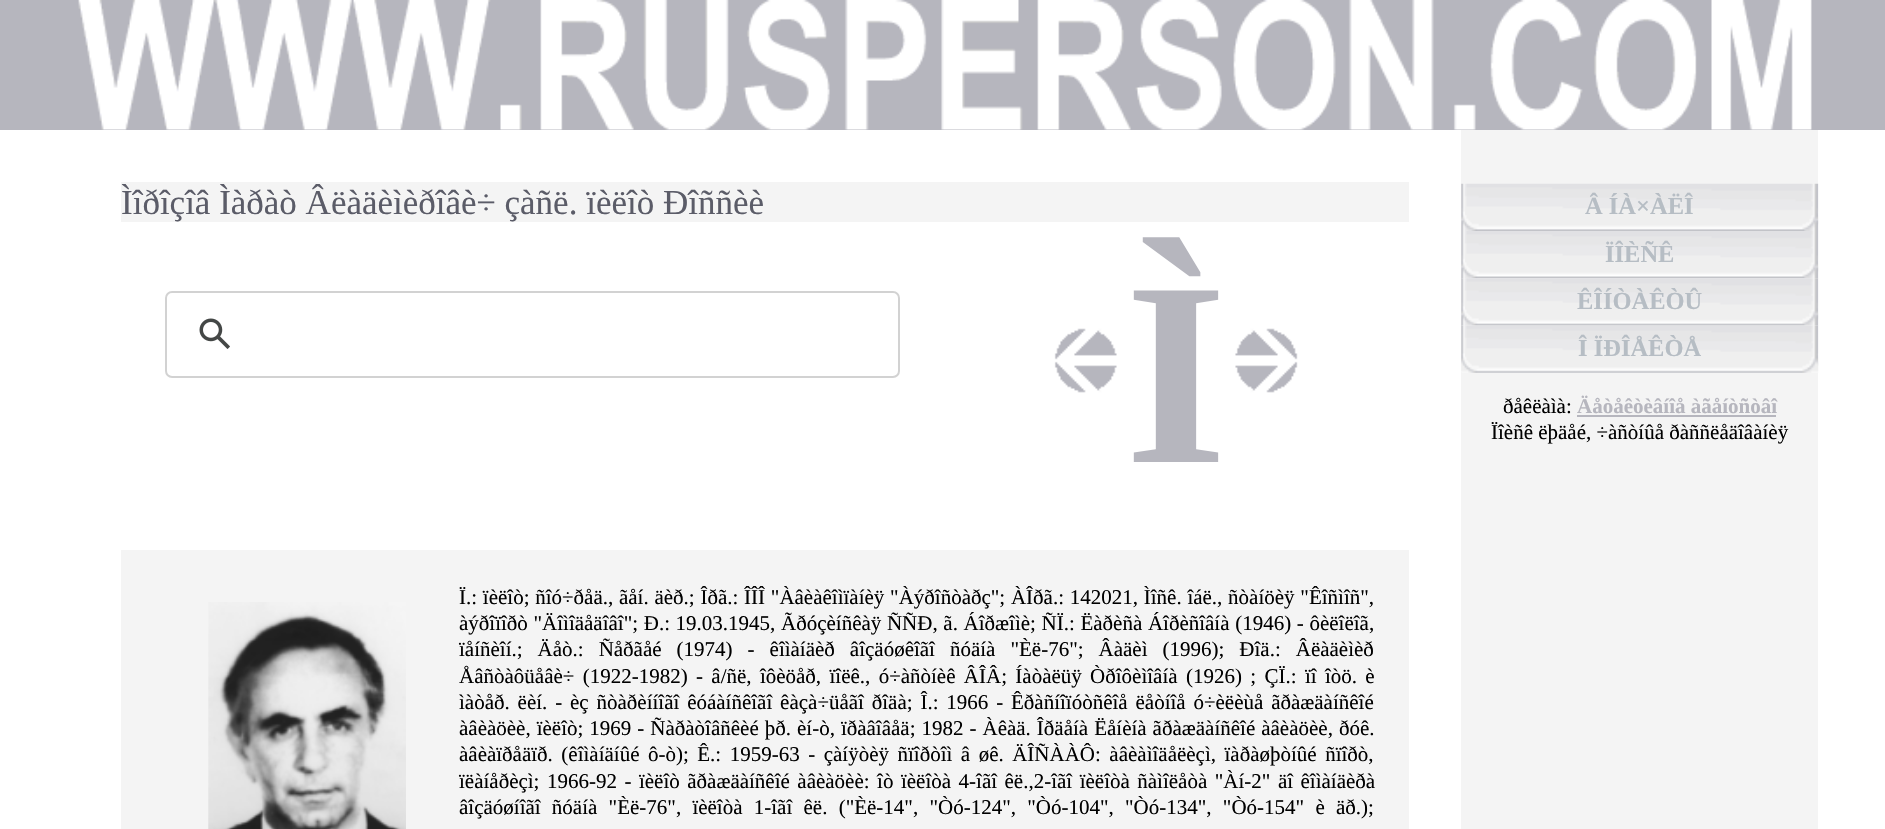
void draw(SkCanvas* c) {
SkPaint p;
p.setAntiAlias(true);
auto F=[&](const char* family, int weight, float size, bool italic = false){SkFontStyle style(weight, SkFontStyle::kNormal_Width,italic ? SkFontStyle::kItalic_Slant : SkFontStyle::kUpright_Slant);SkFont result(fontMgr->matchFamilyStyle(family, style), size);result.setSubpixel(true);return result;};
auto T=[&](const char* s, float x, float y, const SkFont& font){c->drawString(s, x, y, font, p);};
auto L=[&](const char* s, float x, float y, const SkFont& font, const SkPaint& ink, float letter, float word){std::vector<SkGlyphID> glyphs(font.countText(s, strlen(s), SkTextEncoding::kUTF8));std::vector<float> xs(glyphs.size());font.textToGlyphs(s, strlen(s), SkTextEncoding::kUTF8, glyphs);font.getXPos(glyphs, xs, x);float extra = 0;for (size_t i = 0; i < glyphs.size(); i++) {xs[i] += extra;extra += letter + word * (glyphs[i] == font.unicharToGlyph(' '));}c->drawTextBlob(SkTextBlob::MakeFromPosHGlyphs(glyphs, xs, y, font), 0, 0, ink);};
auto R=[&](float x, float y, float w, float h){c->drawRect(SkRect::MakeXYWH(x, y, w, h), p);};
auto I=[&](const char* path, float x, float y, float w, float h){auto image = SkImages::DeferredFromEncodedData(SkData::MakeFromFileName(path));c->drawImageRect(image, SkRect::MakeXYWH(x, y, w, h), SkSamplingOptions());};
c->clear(0xffffffff);
p.setColor(0xffb6b6be);
R(0,0,1885,130);
I("1.png",78,0,1734,130);
p.setColor(0xfff4f4f4);
R(121,182,1288,40);
auto f1 = F("Liberation Serif",400,35);
p.setColor(0xff5b5c68);
T("Ìîðîçîâ Ìàðàò Âëàäèìèðîâè÷ çàñë. ïèëîò Ðîññèè",121,214,f1);
p.setStroke(true);
p.setStrokeWidth(2);
p.setColor(0xffd2d2d2);
c->drawRoundRect(SkRect::MakeXYWH(166,292,733,85),6,6,p);
I("2.png",199,318,31,31);
I("3.png",1054,328,63,65);
auto f2 = F("Liberation Serif",700,262);
p.setStroke(false);
p.setColor(0xffb6b6be);
T("Ì",1125,462,f2);
I("4.png",1235,328,63,65);
p.setColor(0xfff4f4f4);
R(121,550,1288,279);
auto f3 = F("Liberation Serif",400,21);
p.setColor(0xff000000);
L("Ï.: ïèëîò; ñîó÷ðåä., ãåí. äèð.; Îðã.: ÎÎÎ \"Àâèàêîìïàíèÿ \"Àýðîñòàðç\"; ÀÎðã.: 142021, Ìîñê. îáë., ñòàíöèÿ \"Êîñìîñ\",",459,604,f3,p,0,.5);
I("5.png",208,602,198,227);
L("àýðîïîðò \"Äîìîäåäîâî\"; Ð.: 19.03.1945, Ãðóçèíñêàÿ ÑÑÐ, ã. Áîðæîìè; ÑÏ.: Ëàðèñà Áîðèñîâíà (1946) - ôèëîëîã,",459,630,f3,p,0,.4);
L("ïåíñèîí.; Äåò.: Ñåðãåé (1974) - êîìàíäèð âîçäóøêîãî ñóäíà \"Èë-76\"; Âàäèì (1996); Ðîä.: Âëàäèìèð",459,656,f3,p,0,9.75);
L("Åâñòàôüåâè÷ (1922-1982) - â/ñë, îôèöåð, ïîëê., ó÷àñòíèê ÂÎÂ; Íàòàëüÿ Òðîôèìîâíà (1926) ; ÇÏ.: ïî îòö. è",459,683,f3,p,0,3.1);
L("ìàòåð. ëèí. - èç ñòàðèííîãî êóáàíñêîãî êàçà÷üåãî ðîäà; Î.: 1966 - Êðàñíîïóòñêîå ëåòíîå ó÷èëèùå ãðàæäàíñêîé",459,709,f3,p,0,2.6);
L("àâèàöèè, ïèëîò; 1969 - Ñàðàòîâñêèé þð. èí-ò, ïðàâîâåä; 1982 - Àêàä. Îðäåíà Ëåíèíà ãðàæäàíñêîé àâèàöèè, ðóê.",459,735,f3,p,0,.75);
L("àâèàïðåäïð. (êîìàíäíûé ô-ò); Ê.: 1959-63 - çàíÿòèÿ ñïîðòîì â øê. ÄÎÑÀÀÔ: àâèàìîäåëèçì, ïàðàøþòíûé ñïîðò,",459,761,f3,p,0,3.25);
L("ïëàíåðèçì; 1966-92 - ïèëîò ãðàæäàíñêîé àâèàöèè: îò ïèëîòà 4-îãî êë.,2-îãî ïèëîòà ñàìîëåòà \"Àí-2\" äî êîìàíäèðà",459,788,f3,p,0,2.25);
L("âîçäóøíîãî ñóäíà \"Èë-76\", ïèëîòà 1-îãî êë. (\"Èë-14\", \"Òó-124\", \"Òó-104\", \"Òó-134\", \"Òó-154\" è äð.);",459,814,f3,p,0,6);
p.setColor(0xfff4f4f4);
R(1461,130,357,699);
I("6.png",1461,183,358,48);
auto f4 = F("Liberation Serif",700,24.5);
p.setColor(0xffb6bdc4);
T("Â ÍÀ×ÀËÎ",1585,214,f4);
I("7.png",1461,231,358,48);
T("ÏÎÈÑÊ",1605,262,f4);
I("8.png",1461,278,358,48);
T("ÊÎÍÒÀÊÒÛ",1577,309,f4);
I("9.png",1461,325,358,48);
T("Î ÏÐÎÅÊÒÅ",1578,356,f4);
p.setColor(0xff000000);
T("ðåêëàìà:",1503,413,f3);
auto f5 = F("Liberation Serif",700,21);
p.setColor(0xffb6b6be);
T("Äåòåêòèâíîå àãåíòñòâî",1577,413,f5);
R(1577,415,199,2);
p.setColor(0xff000000);
T("Ïîèñê ëþäåé, ÷àñòíûå ðàññëåäîâàíèÿ",1491,439,f3);
}
